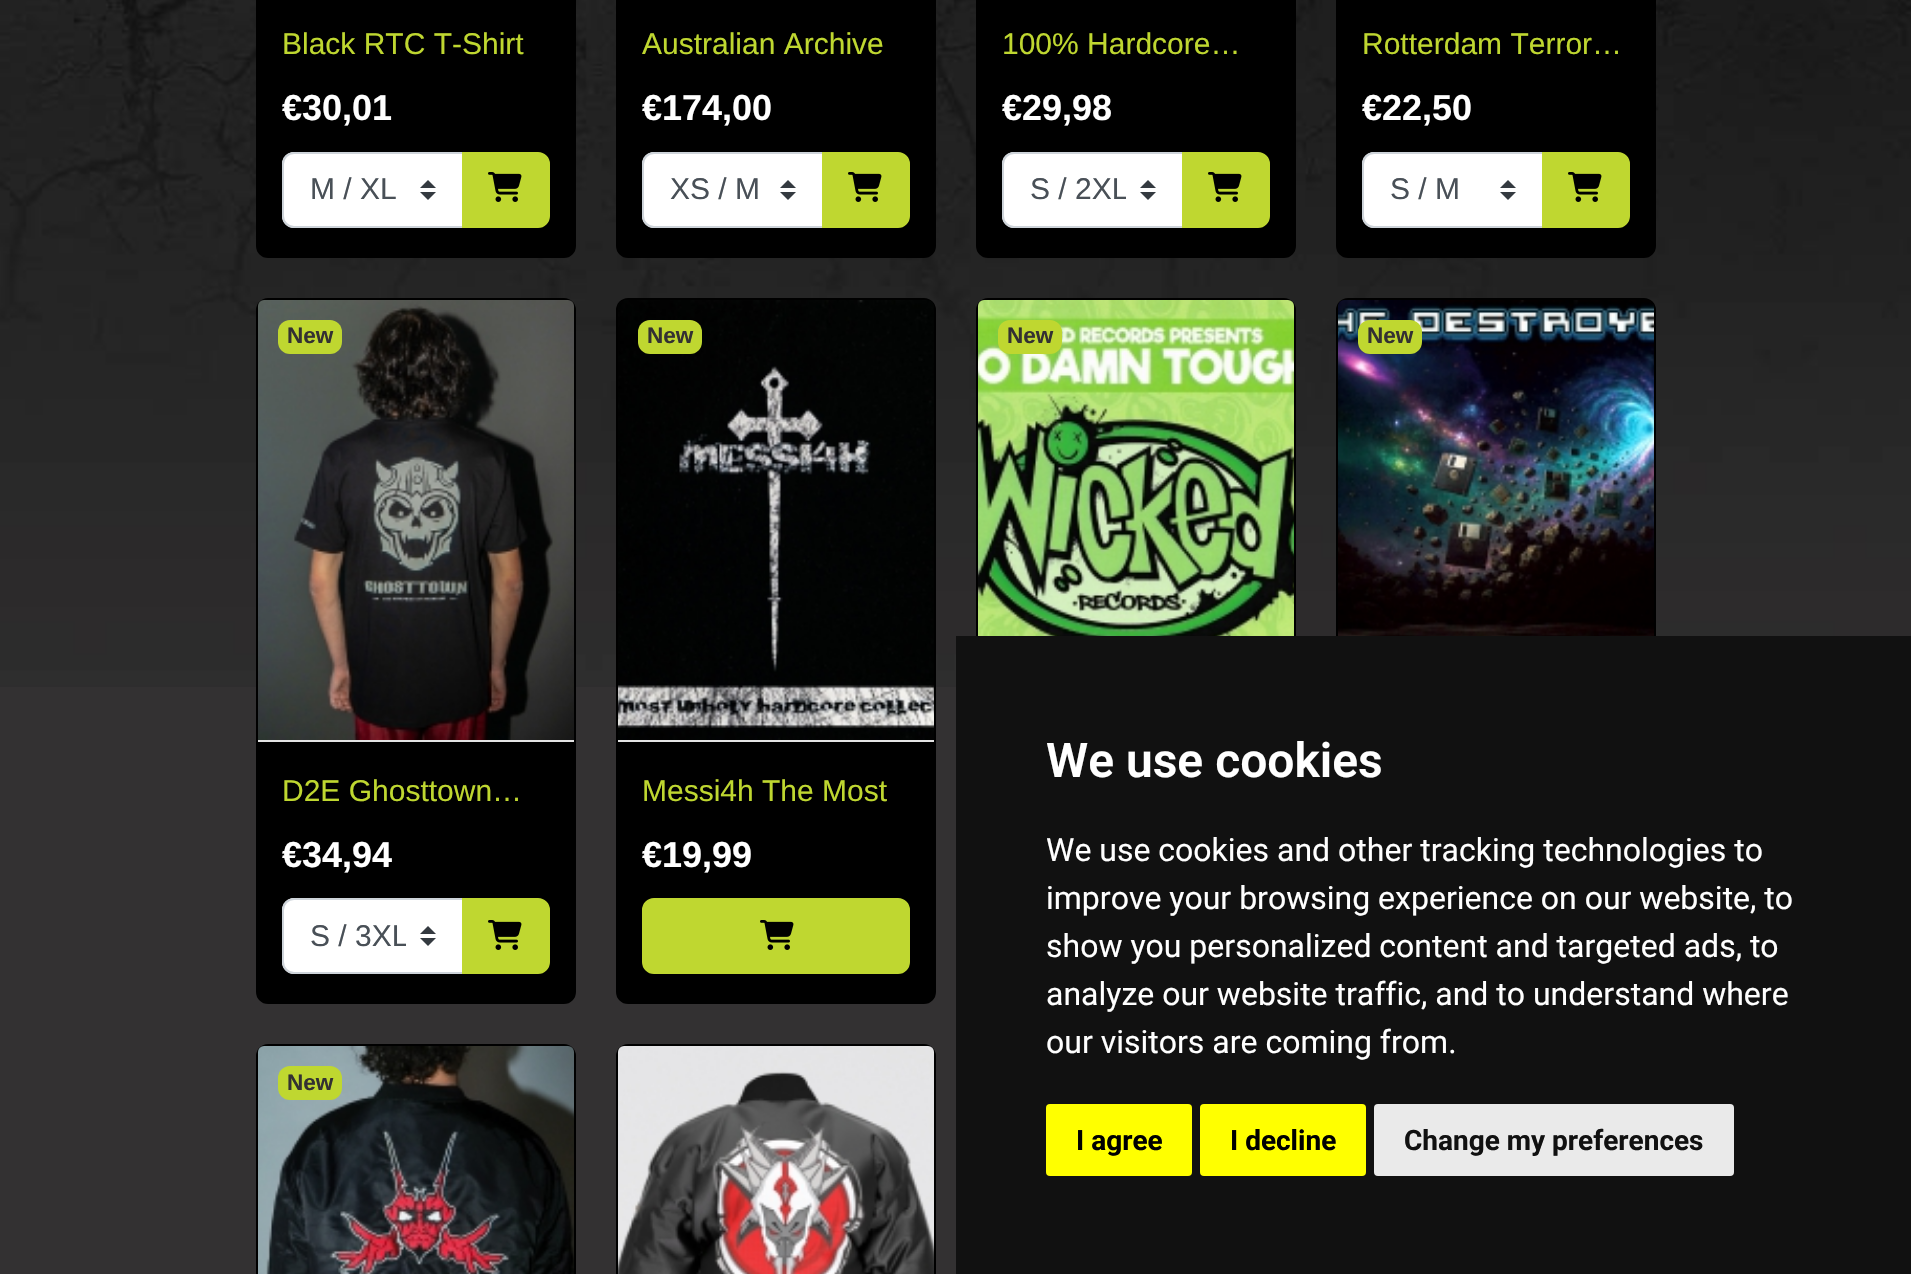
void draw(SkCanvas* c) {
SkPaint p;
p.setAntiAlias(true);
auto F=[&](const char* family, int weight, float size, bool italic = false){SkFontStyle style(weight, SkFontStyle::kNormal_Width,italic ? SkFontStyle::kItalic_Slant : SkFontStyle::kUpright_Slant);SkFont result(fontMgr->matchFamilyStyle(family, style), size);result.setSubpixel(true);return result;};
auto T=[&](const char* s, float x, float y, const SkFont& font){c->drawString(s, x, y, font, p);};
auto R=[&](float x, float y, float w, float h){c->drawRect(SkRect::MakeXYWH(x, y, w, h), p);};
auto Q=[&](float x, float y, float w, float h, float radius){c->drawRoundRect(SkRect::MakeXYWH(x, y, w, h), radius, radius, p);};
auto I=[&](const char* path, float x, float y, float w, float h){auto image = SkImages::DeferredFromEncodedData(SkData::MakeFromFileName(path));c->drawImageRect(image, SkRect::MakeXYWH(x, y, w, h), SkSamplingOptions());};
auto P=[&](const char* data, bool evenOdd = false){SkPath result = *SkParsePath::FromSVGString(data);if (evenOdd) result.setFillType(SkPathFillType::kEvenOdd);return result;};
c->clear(0xff333132);
I("1.png",0,0,1911,687);
p.setColor(0xff000000);
c->drawRoundRect(SkRect::MakeXYWH(257,-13,318,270),11,11,p);
p.setStroke(true);
p.setStrokeWidth(2);
c->drawRoundRect(SkRect::MakeXYWH(257,-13,318,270),11,11,p);
auto f1 = F("Liberation Sans",400,30);
p.setStroke(false);
p.setColor(0xffbfd730);
T("Black RTC T-Shirt",282,54,f1);
auto f2 = F("Liberation Sans",700,36);
p.setColor(0xffffffff);
T("€30,01",282,120,f2);
c->drawPath(P("M294 152h170v76h-170c-6.5 0-12-5.5-12-12v-52c0-6.5 5.5-12 12-12z"),p);
p.setColor(0xff343a40);
c->drawPath(P("M428 180l-8 8h16zm0 20l-8-8h16z"),p);
p.setStroke(true);
p.setColor(0xffced4da);
c->drawPath(P("M294 153h169v74h-169c-6 0-11-5-11-11v-52c0-6 5-11 11-11z"),p);
p.setStroke(false);
p.setColor(0xff495057);
T("M / XL",310,199,f1);
p.setColor(0xffbfd730);
c->drawPath(P("M463 153h75c6 0 11 5 11 11v52c0 6-5 11-11 11h-75z"),p);
p.setStroke(true);
c->drawPath(P("M463 153h75c6 0 11 5 11 11v52c0 6-5 11-11 11h-75z"),p);
I("2.png",488,172,34,30);
p.setStroke(false);
p.setColor(0xff000000);
c->drawRoundRect(SkRect::MakeXYWH(617,-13,318,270),11,11,p);
p.setStroke(true);
c->drawRoundRect(SkRect::MakeXYWH(617,-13,318,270),11,11,p);
p.setStroke(false);
p.setColor(0xffbfd730);
T("Australian Archive",642,54,f1);
p.setColor(0xffffffff);
T("€174,00",642,120,f2);
c->drawPath(P("M654 152h170v76h-170c-6.5 0-12-5.5-12-12v-52c0-6.5 5.5-12 12-12z"),p);
p.setColor(0xff343a40);
c->drawPath(P("M788 180l-8 8h16zm0 20l-8-8h16z"),p);
p.setStroke(true);
p.setColor(0xffced4da);
c->drawPath(P("M654 153h169v74h-169c-6 0-11-5-11-11v-52c0-6 5-11 11-11z"),p);
p.setStroke(false);
p.setColor(0xff495057);
T("XS / M",670,199,f1);
p.setColor(0xffbfd730);
c->drawPath(P("M823 153h75c6 0 11 5 11 11v52c0 6-5 11-11 11h-75z"),p);
p.setStroke(true);
c->drawPath(P("M823 153h75c6 0 11 5 11 11v52c0 6-5 11-11 11h-75z"),p);
I("2.png",848,172,34,30);
p.setStroke(false);
p.setColor(0xff000000);
c->drawRoundRect(SkRect::MakeXYWH(977,-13,318,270),11,11,p);
p.setStroke(true);
c->drawRoundRect(SkRect::MakeXYWH(977,-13,318,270),11,11,p);
p.setStroke(false);
p.setColor(0xffbfd730);
T("100% Hardcore…",1002,54,f1);
p.setColor(0xffffffff);
T("€29,98",1002,120,f2);
c->drawPath(P("M1014 152h170v76h-170c-6.5 0-12-5.5-12-12v-52c0-6.5 5.5-12 12-12z"),p);
p.setColor(0xff343a40);
c->drawPath(P("M1148 180l-8 8h16zm0 20l-8-8h16z"),p);
p.setStroke(true);
p.setColor(0xffced4da);
c->drawPath(P("M1014 153h169v74h-169c-6 0-11-5-11-11v-52c0-6 5-11 11-11z"),p);
c->save();
c->clipRect(SkRect::MakeXYWH(1030,166,96,46));
p.setStroke(false);
p.setColor(0xff495057);
T("S / 2XL",1030,199,f1);
c->restore();
p.setColor(0xffbfd730);
c->drawPath(P("M1183 153h75c6 0 11 5 11 11v52c0 6-5 11-11 11h-75z"),p);
p.setStroke(true);
c->drawPath(P("M1183 153h75c6 0 11 5 11 11v52c0 6-5 11-11 11h-75z"),p);
I("2.png",1208,172,34,30);
p.setStroke(false);
p.setColor(0xff000000);
c->drawRoundRect(SkRect::MakeXYWH(1337,-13,318,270),11,11,p);
p.setStroke(true);
c->drawRoundRect(SkRect::MakeXYWH(1337,-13,318,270),11,11,p);
p.setStroke(false);
p.setColor(0xffbfd730);
T("Rotterdam Terror…",1362,54,f1);
p.setColor(0xffffffff);
T("€22,50",1362,120,f2);
c->drawPath(P("M1374 152h170v76h-170c-6.5 0-12-5.5-12-12v-52c0-6.5 5.5-12 12-12z"),p);
p.setColor(0xff343a40);
c->drawPath(P("M1508 180l-8 8h16zm0 20l-8-8h16z"),p);
p.setStroke(true);
p.setColor(0xffced4da);
c->drawPath(P("M1374 153h169v74h-169c-6 0-11-5-11-11v-52c0-6 5-11 11-11z"),p);
p.setStroke(false);
p.setColor(0xff495057);
T("S / M",1390,199,f1);
p.setColor(0xffbfd730);
c->drawPath(P("M1543 153h75c6 0 11 5 11 11v52c0 6-5 11-11 11h-75z"),p);
p.setStroke(true);
c->drawPath(P("M1543 153h75c6 0 11 5 11 11v52c0 6-5 11-11 11h-75z"),p);
I("2.png",1568,172,34,30);
p.setStroke(false);
p.setColor(0xff000000);
c->drawRoundRect(SkRect::MakeXYWH(257,299,318,704),11,11,p);
p.setStroke(true);
c->drawRoundRect(SkRect::MakeXYWH(257,299,318,704),11,11,p);
I("3.png",258,300,316,440);
p.setStroke(false);
p.setColor(0xffbfd730);
Q(278,320,64,34,12);
auto f3 = F("Liberation Sans",700,22.5);
p.setColor(0xff333132);
T("New",287,343,f3);
p.setColor(0xffe4e4e4);
R(258,740,316,2);
p.setColor(0xffbfd730);
T("D2E Ghosttown…",282,801,f1);
p.setColor(0xffffffff);
T("€34,94",282,867,f2);
c->drawPath(P("M294 898h170v76h-170c-6.5 0-12-5.5-12-12v-52c0-6.5 5.5-12 12-12z"),p);
p.setColor(0xff343a40);
c->drawPath(P("M428 926l-8 8h16zm0 20l-8-8h16z"),p);
p.setStroke(true);
p.setColor(0xffced4da);
c->drawPath(P("M294 899h169v74h-169c-6 0-11-5-11-11v-52c0-6 5-11 11-11z"),p);
c->save();
c->clipRect(SkRect::MakeXYWH(310,914,96,44));
p.setStroke(false);
p.setColor(0xff495057);
T("S / 3XL",310,946,f1);
c->restore();
p.setColor(0xffbfd730);
c->drawPath(P("M463 899h75c6 0 11 5 11 11v52c0 6-5 11-11 11h-75z"),p);
p.setStroke(true);
c->drawPath(P("M463 899h75c6 0 11 5 11 11v52c0 6-5 11-11 11h-75z"),p);
I("2.png",488,920,34,30);
p.setStroke(false);
p.setColor(0xff000000);
c->drawRoundRect(SkRect::MakeXYWH(617,299,318,704),11,11,p);
p.setStroke(true);
c->drawRoundRect(SkRect::MakeXYWH(617,299,318,704),11,11,p);
I("4.png",618,300,316,440);
p.setStroke(false);
p.setColor(0xffbfd730);
Q(638,320,64,34,12);
p.setColor(0xff333132);
T("New",647,343,f3);
p.setColor(0xffe4e4e4);
R(618,740,316,2);
p.setColor(0xffbfd730);
T("Messi4h The Most",642,801,f1);
p.setColor(0xffffffff);
T("€19,99",642,867,f2);
p.setColor(0xffbfd730);
c->drawRoundRect(SkRect::MakeXYWH(643,899,266,74),11,11,p);
p.setStroke(true);
c->drawRoundRect(SkRect::MakeXYWH(643,899,266,74),11,11,p);
I("2.png",760,920,34,30);
p.setColor(0xff000000);
c->drawRoundRect(SkRect::MakeXYWH(977,299,318,704),11,11,p);
I("5.png",978,300,316,336);
p.setStroke(false);
p.setColor(0xffbfd730);
Q(998,320,64,34,12);
p.setColor(0xff333132);
T("New",1007,343,f3);
p.setStroke(true);
p.setColor(0xff000000);
c->drawRoundRect(SkRect::MakeXYWH(1337,299,318,704),11,11,p);
I("6.png",1338,300,316,336);
p.setStroke(false);
p.setColor(0xffbfd730);
Q(1358,320,64,34,12);
p.setColor(0xff333132);
T("New",1367,343,f3);
p.setStroke(true);
p.setColor(0xff000000);
c->drawRoundRect(SkRect::MakeXYWH(257,1045,318,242),11,11,p);
I("7.png",258,1046,316,228);
p.setStroke(false);
p.setColor(0xffbfd730);
Q(278,1066,64,34,12);
p.setColor(0xff333132);
T("New",287,1090,f3);
p.setStroke(true);
p.setColor(0xff000000);
c->drawRoundRect(SkRect::MakeXYWH(617,1045,318,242),11,11,p);
I("8.png",618,1046,316,228);
p.setStroke(false);
p.setColor(0xff111111);
R(956,636,955,638);
auto f4 = F("Roboto",600,48);
p.setColor(0xffffffff);
T("We use cookies",1046,777,f4);
auto f5 = F("Roboto",400,32);
T("We use cookies and other tracking technologies to",1046,861,f5);
T("improve your browsing experience on our website, to",1046,909,f5);
T("show you personalized content and targeted ads, to",1046,957,f5);
T("analyze our website traffic, and to understand where",1046,1005,f5);
T("our visitors are coming from.",1046,1053,f5);
p.setColor(0xffffff00);
Q(1046,1104,146,72,4);
auto f6 = F("Roboto",700,28);
p.setColor(0xff000000);
T("I agree",1076,1150,f6);
p.setColor(0xffffff00);
Q(1200,1104,166,72,4);
p.setColor(0xff000000);
T("I decline",1230,1150,f6);
p.setColor(0xffeaeaea);
Q(1374,1104,360,72,4);
p.setColor(0xff111111);
T("Change my preferences",1404,1150,f6);
}
